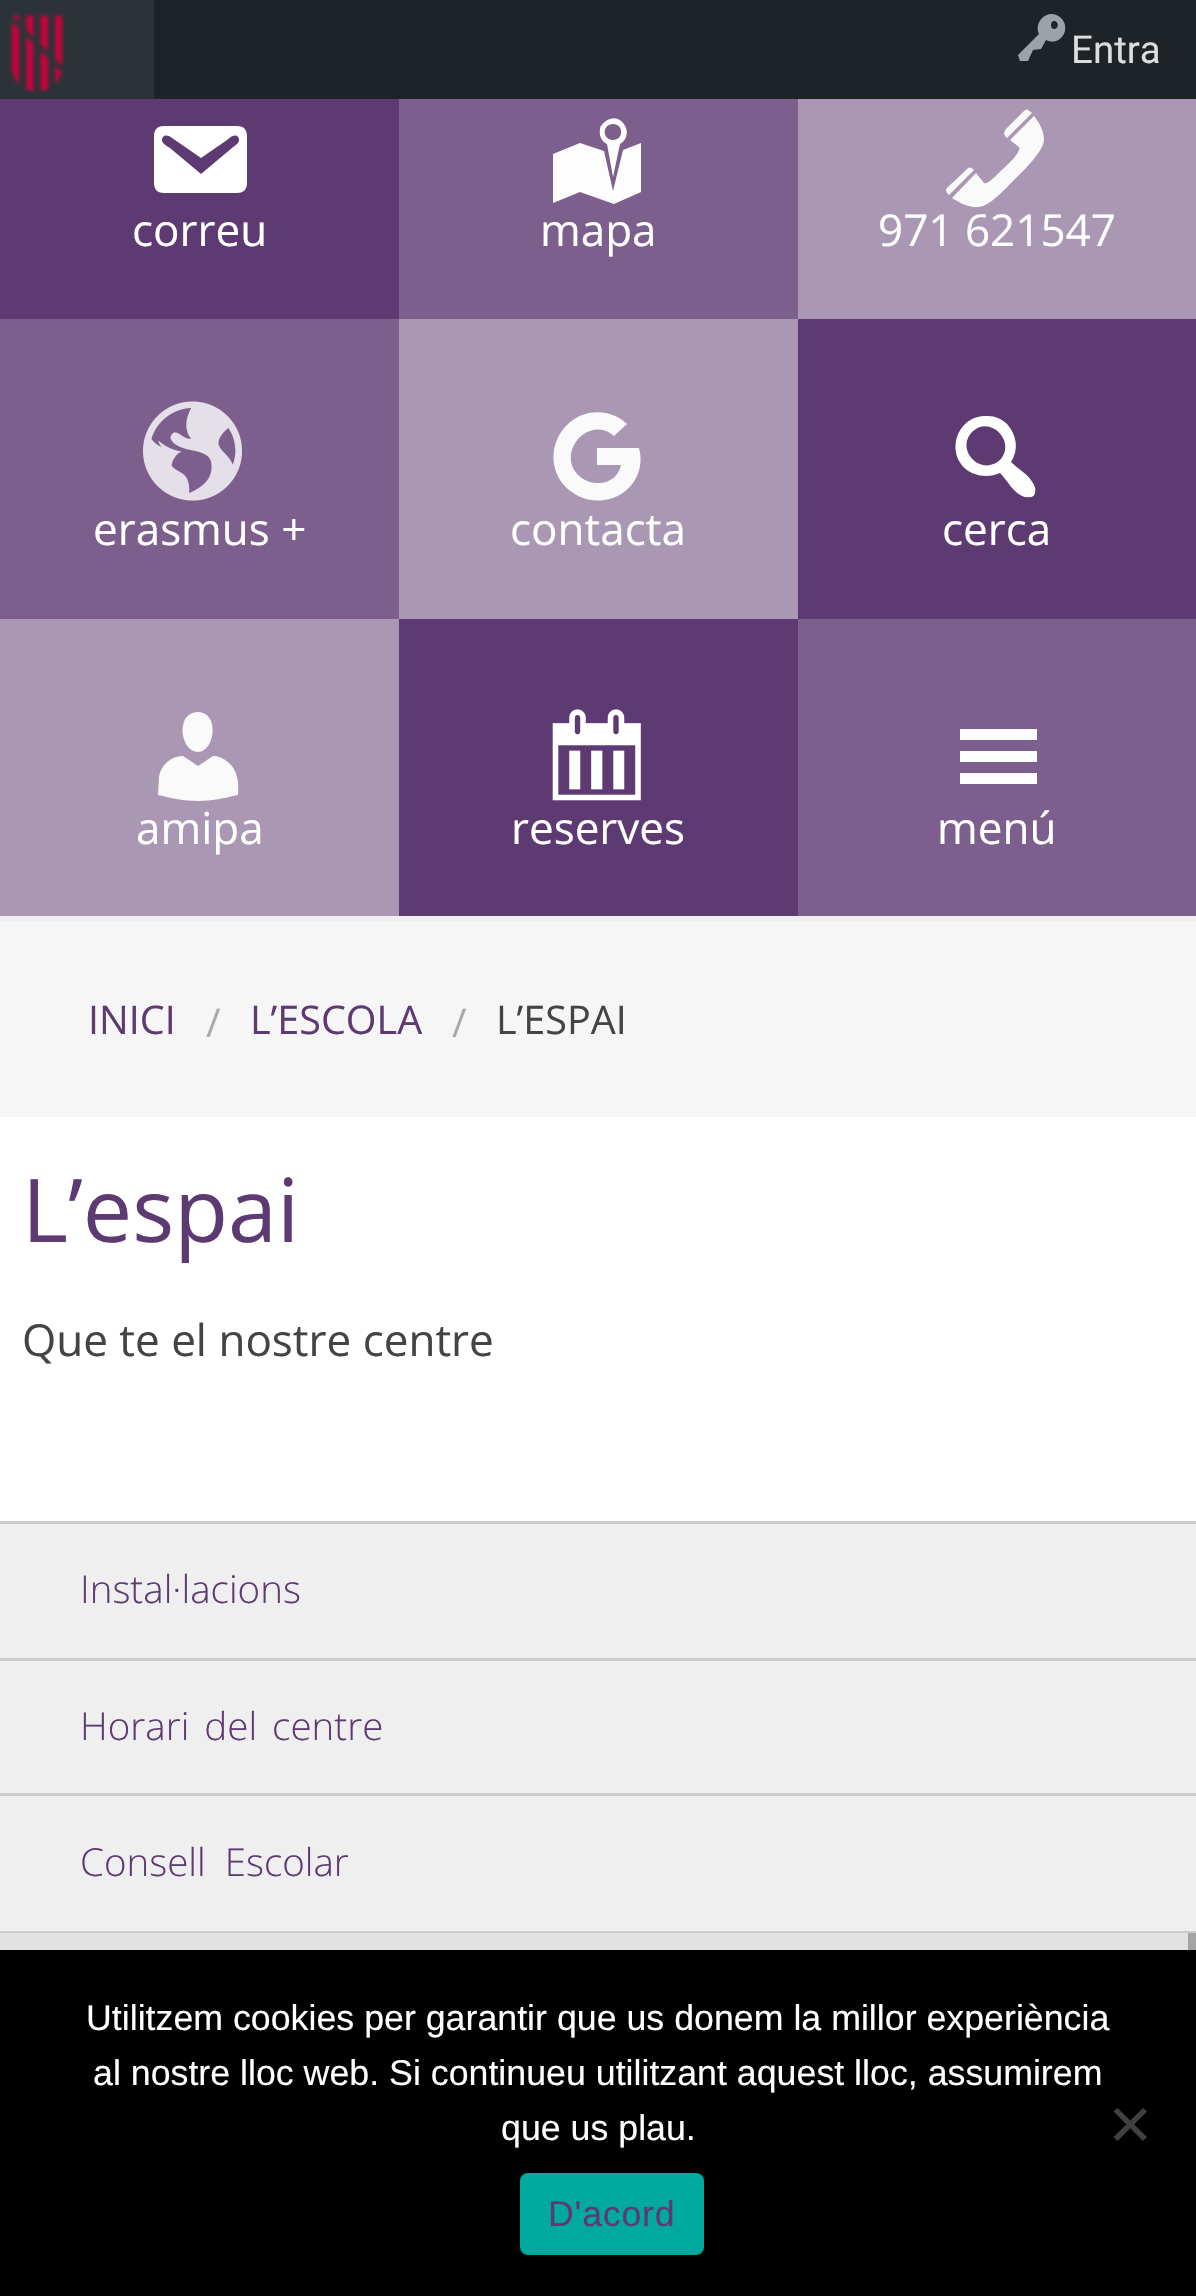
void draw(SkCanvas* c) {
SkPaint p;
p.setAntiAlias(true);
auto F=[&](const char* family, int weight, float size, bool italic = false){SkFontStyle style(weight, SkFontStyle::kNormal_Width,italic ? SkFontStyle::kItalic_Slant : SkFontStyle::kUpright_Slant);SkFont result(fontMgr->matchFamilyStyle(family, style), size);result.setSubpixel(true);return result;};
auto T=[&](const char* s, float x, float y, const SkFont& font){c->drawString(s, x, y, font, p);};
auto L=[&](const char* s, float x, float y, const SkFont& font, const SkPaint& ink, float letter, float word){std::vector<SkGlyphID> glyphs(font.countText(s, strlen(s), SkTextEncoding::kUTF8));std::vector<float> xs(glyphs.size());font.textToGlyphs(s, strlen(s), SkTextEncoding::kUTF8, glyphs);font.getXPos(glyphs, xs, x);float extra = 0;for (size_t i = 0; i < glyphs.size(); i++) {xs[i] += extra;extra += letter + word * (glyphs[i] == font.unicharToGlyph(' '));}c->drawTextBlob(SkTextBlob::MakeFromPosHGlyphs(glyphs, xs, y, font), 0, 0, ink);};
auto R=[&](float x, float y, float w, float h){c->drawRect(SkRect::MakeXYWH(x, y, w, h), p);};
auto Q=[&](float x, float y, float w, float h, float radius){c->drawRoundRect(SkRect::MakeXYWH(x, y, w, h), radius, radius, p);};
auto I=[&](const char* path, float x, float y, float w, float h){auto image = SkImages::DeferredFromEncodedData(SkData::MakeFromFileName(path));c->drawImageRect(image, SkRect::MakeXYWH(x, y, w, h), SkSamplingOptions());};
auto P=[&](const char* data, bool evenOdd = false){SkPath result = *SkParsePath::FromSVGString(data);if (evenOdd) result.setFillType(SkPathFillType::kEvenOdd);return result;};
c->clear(0xffefefef);
p.setColor(0xff1d2327);
R(154,0,1042,99);
p.setColor(0xff2c3338);
R(0,0,154,99);
I("1.png",8,13,57,81);
p.setColor(0xff9ca2a7);
c->drawPath(P("M1061 18c11 11-1 29-15 22l-5 9l-8 1l-5 11h-8l-2-6l21-21c-6-14 11-27 22-16zm-7 11c5 0 5-8 0-8c-4 0-4 8 0 8z"),p);
auto f1 = F("Roboto",400,38.5);
p.setColor(0xffdddddd);
T("Entra",1071,63,f1);
p.setColor(0xff5e3a73);
R(0,99,399,220);
p.setColor(0xffffffff);
c->drawPath(P("M164 126h73c7 0 10 4 10 10v47c0 6-3 10-10 10h-73c-7 0-10-4-10-10v-47c0-6 3-10 10-10zm37 48l31-26c2-2 10-6 6-11c-3-4-9 1-11 3l-26 18l-26-18c-3-2-8-7-12-3c-4 5 4 9 7 11z"),p);
auto f2 = F("Open Sans",400,44);
T("correu",132,246,f2);
p.setColor(0xff7c5f8d);
R(399,99,399,220);
p.setColor(0xfffdfdfd);
c->drawPath(P("M613 177l7-33c16-9 1-34-14-23c-3 2-6 5-6 8c-1 6 1 12 7 15zm0-53c11 0 11 16 0 16c-11 0-11-16 0-16zm10 26l18-7v49l-27 12l-34-12l-27 11v-49l27-11l24 8l9 40z"),p);
p.setColor(0xffffffff);
T("mapa",540,246,f2);
p.setColor(0xffa997b4);
R(798,99,398,220);
p.setColor(0xfffafafa);
c->drawPath(P("M1007 138c-3-3-4-5-1-9l17-17c4-4 4-3 9 1zm3 2l24-24c5 6 10 15 10 24c-1 13-24 34-31 41c-7 7-23 25-34 26c-10 1-19-4-27-9l24-25l8 10c4 3 18-14 20-15c2-2 18-16 15-21zm-61 55c-4-4-4-5 0-9l14-13c5-5 6-8 11-3z"),p);
p.setColor(0xffffffff);
T("971 621547",878,246,f2);
p.setColor(0xff7c5f8d);
R(0,319,399,300);
I("2.png",143,401,99,100);
p.setColor(0xffffffff);
T("erasmus +",93,545,f2);
p.setColor(0xffa997b4);
R(399,319,399,300);
p.setColor(0xfffafafa);
c->drawPath(P("M639 448h-42v17h24c-2 11-12 19-24 18c-7 0-14-3-20-9c-20-24 13-59 37-38l13-12c-6-6-13-9-21-11c-44-8-71 47-37 77c10 8 22 12 35 10c25-3 42-27 35-52z"),p);
p.setColor(0xffffffff);
T("contacta",510,545,f2);
p.setColor(0xff5e3a73);
R(798,319,398,300);
p.setColor(0xffffffff);
c->drawPath(P("M1007 424c10 11 12 26 4 38c8 8 18 12 23 23c1 2 2 5 1 7c0 3-2 5-5 5c-8 2-17-7-21-13c-3-4-6-8-9-11c-9 4-19 4-28 0c-29-15-17-59 16-57c7 0 14 3 19 8zm-7 36c17-18-10-46-28-28c-17 18 9 45 28 28z"),p);
T("cerca",942,545,f2);
p.setColor(0xffa997b4);
R(0,619,399,297);
p.setColor(0xfffafafa);
c->drawPath(P("M198 752c-18 0-23-40 0-40c22 0 17 40 0 40zm0 14l15-10c11 0 22 10 24 21c2 6 1 12 1 18c-13 3-27 6-40 6c-14 0-27-3-40-6l1-18c2-12 12-21 24-21z"),p);
p.setColor(0xffffffff);
T("amipa",136,844,f2);
p.setColor(0xff5e3a73);
R(399,619,399,297);
I("3.png",552,709,89,92);
p.setColor(0xffffffff);
T("reserves",511,844,f2);
p.setColor(0xff7c5f8d);
R(798,619,398,297);
p.setColor(0xfffdfdfd);
c->drawPath(P("M960 784h77v-11h-77zm0-55v11h77v-11zm0 33h77v-11h-77z"),p);
p.setColor(0xffffffff);
T("menú",937,844,f2);
p.setColor(0xfff6f6f6);
R(0,921,1196,196);
auto f3 = F("Open Sans",400,39.5);
p.setColor(0xff5e3a73);
T("INICI",88,1034,f3);
p.setColor(0xffaaaaaa);
T("/",206,1037,f3);
p.setColor(0xff5e3a73);
T("L’ESCOLA",250,1034,f3);
p.setColor(0xffaaaaaa);
T("/",452,1037,f3);
p.setColor(0xff444444);
T("L’ESPAI",496,1034,f3);
p.setColor(0xffffffff);
R(0,1117,1196,404);
auto f4 = F("Open Sans",400,88);
p.setColor(0xff5e3a73);
T("L’espai",22,1242,f4);
p.setColor(0xff444444);
T("Que te el nostre centre",22,1356,f2);
p.setColor(0xffcccccc);
R(0,1521,1196,3);
R(0,1658,1196,3);
auto f5 = F("Open Sans",300,38.5);
p.setColor(0xff5e3a73);
T("Instal·lacions",80,1603,f5);
p.setColor(0xffcccccc);
R(0,1793,1196,3);
p.setColor(0xff5e3a73);
L("Horari del centre",80,1740,f5,p,0,5);
p.setColor(0xffcccccc);
R(0,1931,1196,2);
p.setColor(0xff5e3a73);
L("Consell Escolar",80,1876,f5,p,0,9);
p.setColor(0xffe2e2e2);
R(0,1933,1188,17);
p.setColor(0xffa4a4a4);
R(1188,1933,8,17);
p.setColor(0xff000000);
R(0,1950,1196,346);
auto f6 = F("Liberation Sans",400,35.75);
p.setColor(0xffffffff);
T("Utilitzem cookies per garantir que us donem la millor experiència",86,2030,f6);
T("al nostre lloc web. Si continueu utilitzant aquest lloc, assumirem",93,2085,f6);
T("que us plau.",501,2140,f6);
p.setColor(0xff404040);
c->drawPath(P("M1143 2108l4 3.5l-29.5 29.5l-4-4z"),p);
c->drawPath(P("M1113.5 2111.5l4-3.5l29.5 29l-4 4z"),p);
p.setColor(0xff00a99d);
Q(520,2173,184,82,8);
p.setColor(0xff5e3a73);
L("D'acord",548,2226,f6,p,.75,0);
}
